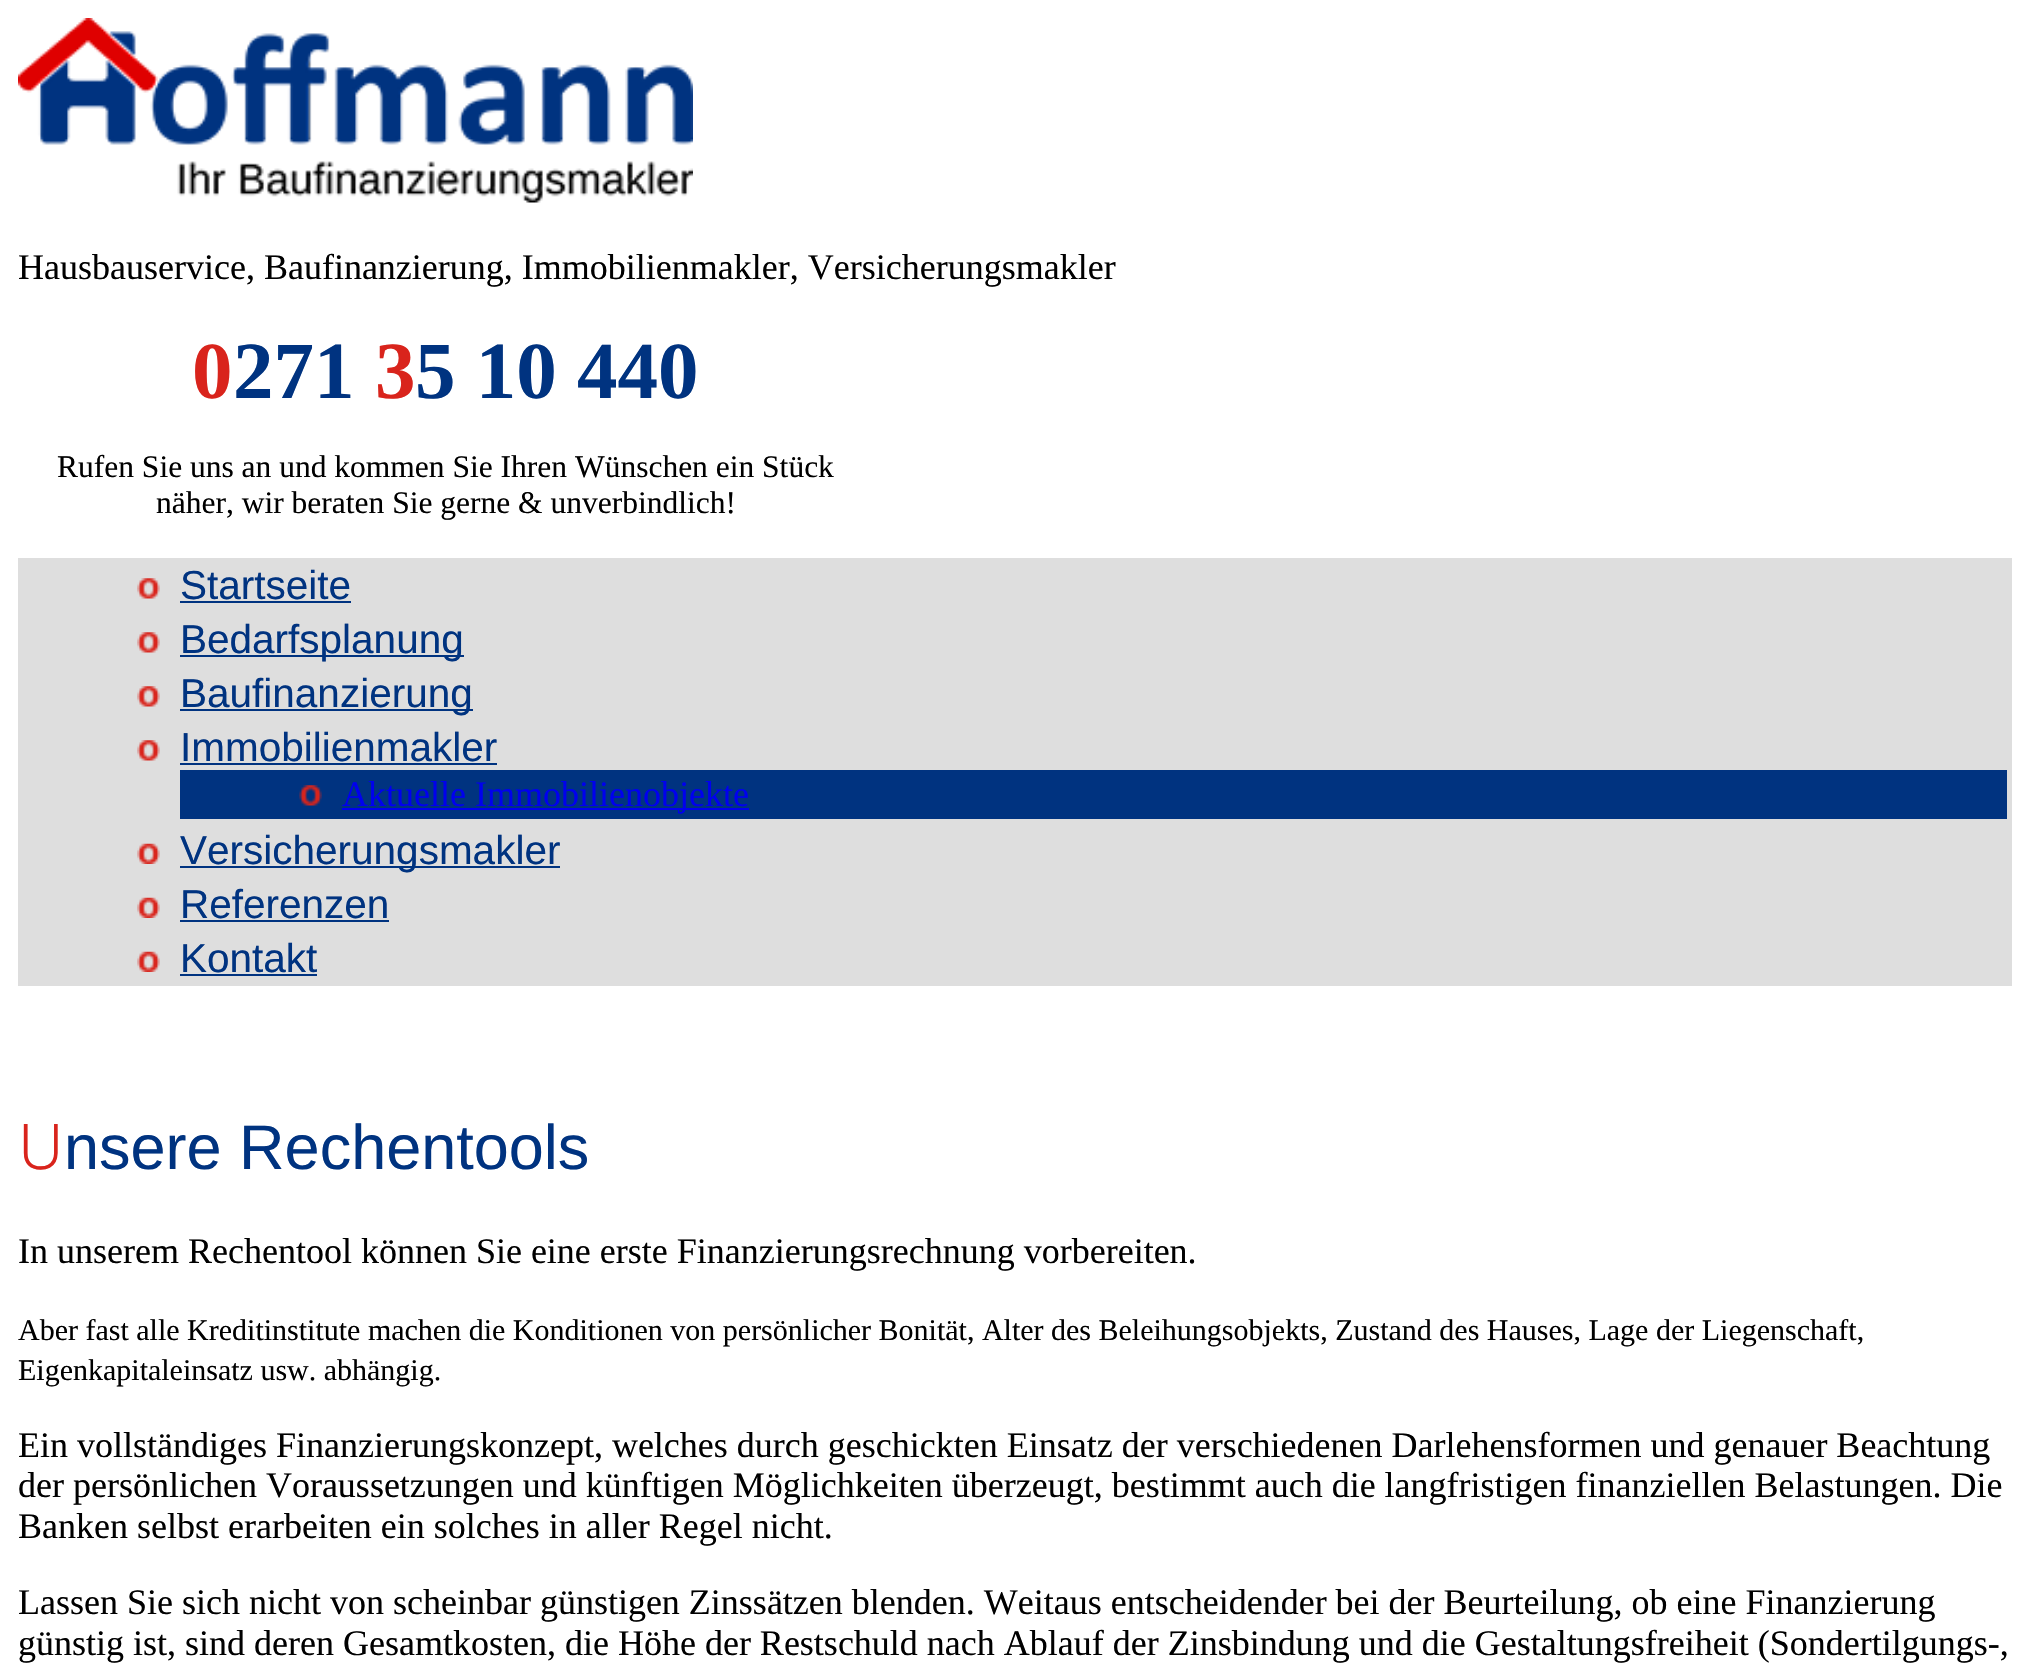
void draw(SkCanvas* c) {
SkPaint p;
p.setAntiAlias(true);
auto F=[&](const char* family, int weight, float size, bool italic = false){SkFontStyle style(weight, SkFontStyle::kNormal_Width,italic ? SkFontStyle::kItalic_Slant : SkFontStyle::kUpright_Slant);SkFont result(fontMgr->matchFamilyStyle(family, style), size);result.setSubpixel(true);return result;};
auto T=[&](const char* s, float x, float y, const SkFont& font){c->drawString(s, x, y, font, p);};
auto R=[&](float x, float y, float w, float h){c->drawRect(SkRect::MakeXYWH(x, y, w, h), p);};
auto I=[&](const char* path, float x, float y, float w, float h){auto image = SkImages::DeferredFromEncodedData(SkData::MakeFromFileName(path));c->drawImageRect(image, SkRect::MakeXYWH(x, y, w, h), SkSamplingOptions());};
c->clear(0xffffffff);
I("1.png",18,18,675,185);
auto f1 = F("Liberation Serif",400,36);
p.setColor(0xff000000);
T("Hausbauservice, Baufinanzierung, Immobilienmakler, Versicherungsmakler",18,279,f1);
auto f2 = F("Liberation Serif",700,81);
p.setColor(0xffd9241c);
T("0",192,398,f2);
p.setColor(0xff003380);
T("271",233,398,f2);
p.setColor(0xffd9241c);
T("3",375,398,f2);
p.setColor(0xff003380);
T("5 10 440",415,398,f2);
auto f3 = F("Liberation Serif",400,31.5);
p.setColor(0xff000000);
T("Rufen Sie uns an und kommen Sie Ihren Wünschen ein Stück",57,477,f3);
T("näher, wir beraten Sie gerne & unverbindlich!",156,513,f3);
p.setColor(0xffdedede);
R(18,558,1994,428);
I("2.png",137,578,23,21);
auto f4 = F("Liberation Sans",400,40.5);
p.setColor(0xff003380);
T("Startseite",180,599,f4);
R(180,601,171,2);
I("3.png",137,632,23,21);
R(180,655,284,2);
T("Bedarfsplanung",180,653,f4);
I("3.png",137,686,23,21);
R(180,709,293,2);
T("Baufinanzierung",180,707,f4);
I("3.png",137,740,23,21);
T("Immobilienmakler",180,761,f4);
R(180,763,317,2);
R(180,770,1827,49);
I("4.png",299,785,23,21);
p.setColor(0xff0000ee);
R(342,808,407,2);
T("Aktuelle Immobilienobjekte",342,806,f1);
I("5.png",137,843,23,21);
p.setColor(0xff003380);
R(180,866,380,2);
T("Versicherungsmakler",180,864,f4);
I("5.png",137,897,23,21);
T("Referenzen",180,918,f4);
R(180,920,209,2);
I("5.png",137,951,23,21);
T("Kontakt",180,972,f4);
R(180,974,137,2);
auto f5 = F("Noto Sans",300,63);
p.setColor(0xffd9241c);
T("U",18,1169,f5);
auto f6 = F("Liberation Sans",400,63);
p.setColor(0xff003380);
T("nsere Rechentools",64,1169,f6);
p.setColor(0xff000000);
T("In unserem Rechentool können Sie eine erste Finanzierungsrechnung vorbereiten.",18,1263,f1);
auto f7 = F("Liberation Serif",400,30);
T("Aber fast alle Kreditinstitute machen die Konditionen von persönlicher Bonität, Alter des Beleihungsobjekts, Zustand des Hauses, Lage der Liegenschaft,",18,1340,f7);
T("Eigenkapitaleinsatz usw. abhängig.",18,1380,f7);
T("Ein vollständiges Finanzierungskonzept, welches durch geschickten Einsatz der verschiedenen Darlehensformen und genauer Beachtung",18,1457,f1);
T("der persönlichen Voraussetzungen und künftigen Möglichkeiten überzeugt, bestimmt auch die langfristigen finanziellen Belastungen. Die",18,1497,f1);
T("Banken selbst erarbeiten ein solches in aller Regel nicht.",18,1538,f1);
T("Lassen Sie sich nicht von scheinbar günstigen Zinssätzen blenden. Weitaus entscheidender bei der Beurteilung, ob eine Finanzierung",18,1614,f1);
T("günstig ist, sind deren Gesamtkosten, die Höhe der Restschuld nach Ablauf der Zinsbindung und die Gestaltungsfreiheit (Sondertilgungs-,",18,1655,f1);
}
